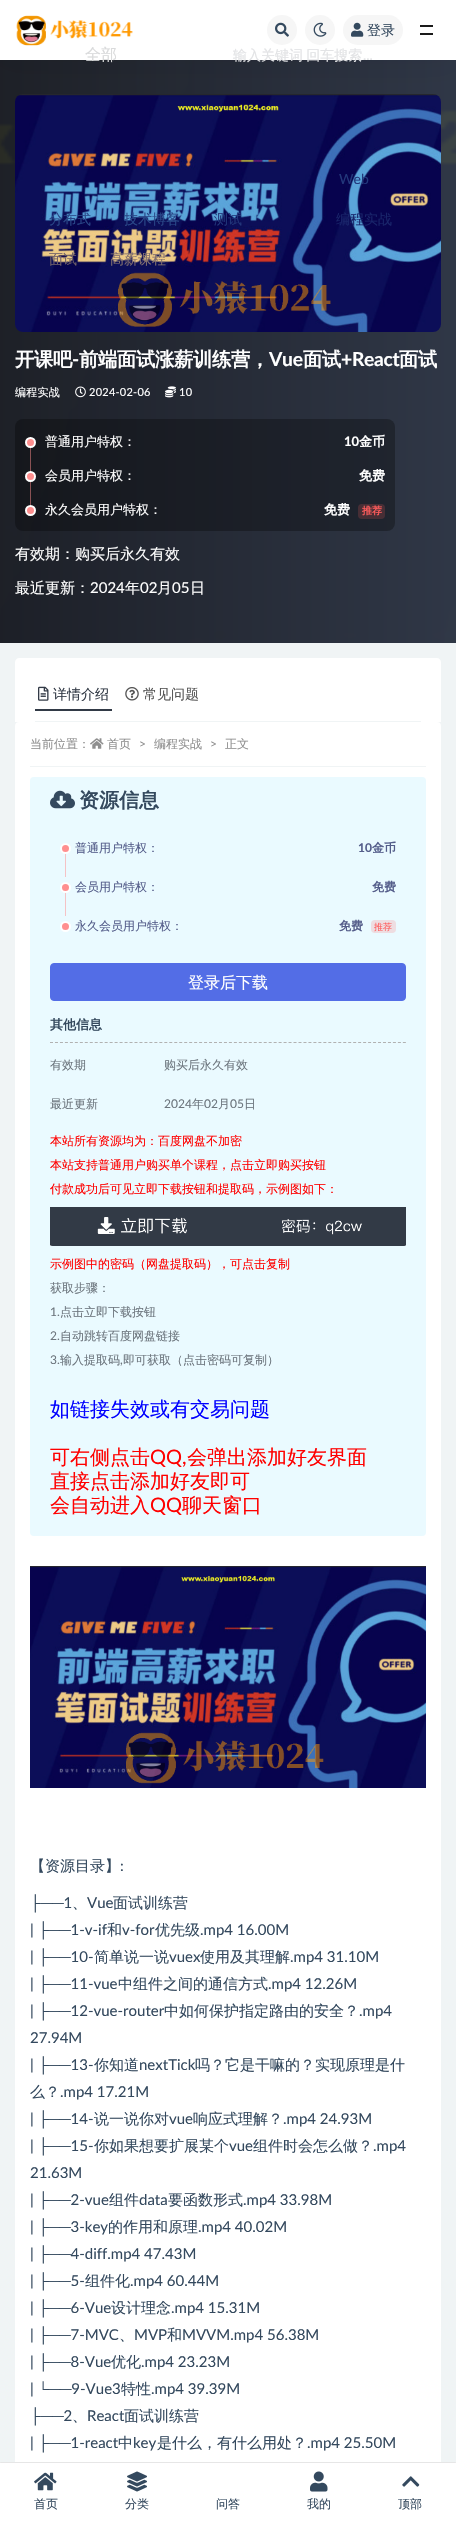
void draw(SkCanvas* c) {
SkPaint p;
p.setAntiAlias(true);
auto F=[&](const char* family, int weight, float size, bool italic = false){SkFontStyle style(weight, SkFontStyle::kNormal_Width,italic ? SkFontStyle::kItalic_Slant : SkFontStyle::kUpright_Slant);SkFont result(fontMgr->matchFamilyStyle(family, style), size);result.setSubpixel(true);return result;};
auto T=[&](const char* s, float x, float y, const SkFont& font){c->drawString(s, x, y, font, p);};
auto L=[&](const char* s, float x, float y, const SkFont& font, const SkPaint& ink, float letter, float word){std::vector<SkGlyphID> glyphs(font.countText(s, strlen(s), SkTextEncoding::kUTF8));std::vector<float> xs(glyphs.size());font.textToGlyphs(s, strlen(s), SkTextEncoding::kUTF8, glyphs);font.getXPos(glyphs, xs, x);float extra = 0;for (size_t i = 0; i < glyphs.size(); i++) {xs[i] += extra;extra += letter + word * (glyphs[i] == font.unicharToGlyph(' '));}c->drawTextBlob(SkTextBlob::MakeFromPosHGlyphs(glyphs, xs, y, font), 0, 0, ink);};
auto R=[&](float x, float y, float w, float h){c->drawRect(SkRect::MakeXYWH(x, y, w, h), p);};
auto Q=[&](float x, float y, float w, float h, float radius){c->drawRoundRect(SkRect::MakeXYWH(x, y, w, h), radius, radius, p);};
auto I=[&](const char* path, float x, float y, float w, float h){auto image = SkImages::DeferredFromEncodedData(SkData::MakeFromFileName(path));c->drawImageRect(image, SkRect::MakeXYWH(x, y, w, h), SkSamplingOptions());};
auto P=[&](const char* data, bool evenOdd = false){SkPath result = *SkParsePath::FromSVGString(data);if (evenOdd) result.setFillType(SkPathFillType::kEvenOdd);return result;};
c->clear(0xfff0f4f5);
I("5.png",0,60,456,583);
I("6.png",15,94,426,238);
p.setColor(0x12000000);
p.setMaskFilter(SkMaskFilter::MakeBlur(kNormal_SkBlurStyle, 15));
c->drawRect(SkRect::MakeXYWH(0,0,456,60),p);
p.setMaskFilter(nullptr);
p.setColor(0xffffffff);
R(0,0,456,60);
I("1.png",16,15,117,31);
p.setColor(0xfff6f6f6);
c->drawCircle(282,30,15,p);
I("2.png",275,22,14,15);
c->drawCircle(320,30,15,p);
I("3.png",313,22,14,15);
Q(343,15,60,30,15);
I("4.png",351,22,13,15);
auto f1 = F("WenQuanYi Zen Hei",500,14);
p.setColor(0xff34495e);
T("登录",367,35,f1);
p.setColor(0xff1a1a1a);
R(420,25,13,2);
R(420,33,13,2);
auto f2 = F("WenQuanYi Zen Hei",700,19.25);
p.setColor(0xffffffff);
L("开课吧",15,366,f2,p,-.25,0);
auto f3 = F("Lato",700,19.25);
L("-",72,366,f3,p,-.25,0);
L("前端面试涨薪训练营，",79,366,f2,p,-.25,0);
L("Vue",269,366,f3,p,-.25,0);
L("面试",303,366,f2,p,-.25,0);
L("+React",341,366,f3,p,-.25,0);
L("面试",399,366,f2,p,-.25,0);
auto f4 = F("WenQuanYi Zen Hei",500,11);
L("编程实战",15,396,f4,p,.25,0);
I("7.png",75,386,11,12);
auto f5 = F("Lato",400,11);
L("2024-02-06",89,396,f5,p,.25,0);
I("8.png",165,386,11,12);
L("10",179,396,f5,p,.25,0);
p.setColor(0x4d000000);
Q(15,419,380,112,8);
p.setColor(0xff8a5154);
R(30,437,1,68);
p.setColor(0xffff8f8f);
c->drawCircle(30.5,442.5,4.5,p);
p.setStroke(true);
p.setStrokeWidth(2);
p.setColor(0xffffffff);
c->drawCircle(30.5,442.5,4.5,p);
auto f6 = F("WenQuanYi Zen Hei",500,13);
p.setStroke(false);
T("普通用户特权：",45,446,f6);
auto f7 = F("Lato",700,13);
T("10",344,446,f7);
auto f8 = F("WenQuanYi Zen Hei",700,13);
T("金币",359,446,f8);
p.setColor(0xffff8f8f);
c->drawCircle(30.5,476.5,4.5,p);
p.setStroke(true);
p.setColor(0xffffffff);
c->drawCircle(30.5,476.5,4.5,p);
p.setStroke(false);
T("会员用户特权：",45,480,f6);
T("免费",359,480,f8);
p.setColor(0xffff8f8f);
c->drawCircle(30.5,510.5,4.5,p);
p.setStroke(true);
p.setColor(0xffffffff);
c->drawCircle(30.5,510.5,4.5,p);
p.setStroke(false);
T("永久会员用户特权：",45,514,f6);
T("免费",324,514,f8);
p.setColor(0xff472e35);
Q(358,504,27,15,4);
auto f9 = F("WenQuanYi Zen Hei",700,10);
p.setColor(0xffff5b5b);
T("推荐",362,514,f9);
auto f10 = F("WenQuanYi Zen Hei",500,15);
p.setColor(0xffffffff);
T("有效期：购买后永久有效",15,559,f10);
T("最近更新：",15,593,f10);
auto f11 = F("Lato",400,15);
T("2024",90,593,f11);
T("年",125,593,f10);
T("02",140,593,f11);
T("月",157,593,f10);
T("05",172,593,f11);
T("日",190,593,f10);
c->drawPath(P("M19 658h418c2 0 4 2 4 4v60h-426v-60c0-2 2-4 4-4z"),p);
p.setColor(0xfff0f4f5);
R(35,721,386,1);
p.setColor(0xff323a46);
R(35,709,77,2);
I("9.png",38,686,11,15);
T("详情介绍",53,699,f1);
I("10.png",125,687,14,14);
p.setColor(0xff555555);
T("常见问题",143,699,f1);
p.setColor(0xffffffff);
Q(15,722,426,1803,4);
p.setColor(0xfff0f4f5);
R(30,766,396,1);
auto f12 = F("WenQuanYi Zen Hei",500,12);
p.setColor(0xff8f8f8f);
T("当前位置：",30,748,f12);
I("11.png",90,738,14,11);
T("首页",107,748,f12);
auto f13 = F("Lato",400,12);
T(">",139,748,f13);
T("编程实战",154,748,f12);
T(">",210,748,f13);
T("正文",225,748,f12);
p.setColor(0xffeafaff);
Q(30,777,396,759,4);
I("12.png",50,790,25,19);
auto f14 = F("WenQuanYi Zen Hei",700,20);
p.setColor(0xff34495e);
T("资源信息",79,807,f14);
p.setColor(0xfff5c2c5);
R(65,843,1,34);
p.setColor(0xffff8f8f);
c->drawCircle(65.5,848.5,4.5,p);
p.setStroke(true);
p.setColor(0xffffffff);
c->drawCircle(65.5,848.5,4.5,p);
p.setStroke(false);
p.setColor(0xff545d8a);
T("普通用户特权：",75,852,f12);
auto f15 = F("Lato",700,12);
T("10",358,852,f15);
auto f16 = F("WenQuanYi Zen Hei",700,12);
T("金币",372,852,f16);
p.setColor(0xfff5c2c5);
R(65,882,1,34);
p.setColor(0xffff8f8f);
c->drawCircle(65.5,887.5,4.5,p);
p.setStroke(true);
p.setColor(0xffffffff);
c->drawCircle(65.5,887.5,4.5,p);
p.setStroke(false);
p.setColor(0xff545d8a);
T("会员用户特权：",75,891,f12);
T("免费",372,891,f16);
p.setColor(0xffff8f8f);
c->drawCircle(65.5,926.5,4.5,p);
p.setStroke(true);
p.setColor(0xffffffff);
c->drawCircle(65.5,926.5,4.5,p);
p.setStroke(false);
p.setColor(0xff545d8a);
T("永久会员用户特权：",75,930,f12);
T("免费",339,930,f16);
p.setColor(0xffeedde1);
Q(371,920,25,13,4);
auto f17 = F("WenQuanYi Zen Hei",500,9);
p.setColor(0xffff5b5b);
T("推荐",374,930,f17);
p.setColor(0xff536de6);
c->drawRoundRect(SkRect::MakeXYWH(50.5,963.5,355,37),3.5,3.5,p);
p.setStroke(true);
p.setStrokeWidth(1);
c->drawRoundRect(SkRect::MakeXYWH(50.5,963.5,355,37),3.5,3.5,p);
auto f18 = F("WenQuanYi Zen Hei",500,16);
p.setStroke(false);
p.setColor(0xffffffff);
T("登录后下载",188,988,f18);
p.setStroke(true);
p.setColor(0xffb1b1b1);
p.setPathEffect(SkDashPathEffect::Make({{3,1.97f}}, 0));
c->drawPath(P("M50 1042.5h356"),p);
p.setPathEffect(nullptr);
p.setStroke(false);
p.setColor(0xff34495e);
T("其他信息",50,1029,f8);
p.setColor(0xff6c757d);
T("有效期",50,1069,f12);
T("购买后永久有效",164,1069,f12);
T("最近更新",50,1108,f12);
T("2024",164,1108,f13);
T("年",192,1108,f12);
T("02",204,1108,f13);
T("月",218,1108,f12);
T("05",230,1108,f13);
T("日",244,1108,f12);
p.setColor(0xffff0000);
T("本站所有资源均为：百度网盘不加密",50,1145,f12);
T("本站支持普通用户购买单个课程，点击立即购买按钮",50,1169,f12);
T("付款成功后可见立即下载按钮和提取码，示例图如下：",50,1193,f12);
I("13.png",50,1207,356,39);
T("示例图中的密码（网盘提取码），可点击复制",50,1268,f12);
p.setColor(0xff6c757d);
T("获取步骤：",50,1292,f12);
T("1.",50,1316,f13);
T("点击立即下载按钮",60,1316,f12);
T("2.",50,1340,f13);
T("自动跳转百度网盘链接",60,1340,f12);
T("3.",50,1364,f13);
T("输入提取码",60,1364,f12);
T(",",120,1364,f13);
T("即可获取（点击密码可复制）",123,1364,f12);
auto f19 = F("WenQuanYi Zen Hei",500,20);
p.setColor(0xff0000ff);
T("如链接失效或有交易问题",50,1416,f19);
p.setColor(0xffff0000);
T("可右侧点击",50,1464,f19);
auto f20 = F("Lato",400,20);
T("QQ,",150,1464,f20);
T("会弹出添加好友界面",187,1464,f19);
T("直接点击添加好友即可",50,1488,f19);
T("会自动进入",50,1512,f19);
T("QQ",150,1512,f20);
T("聊天窗口",182,1512,f19);
I("14.png",30,1566,396,222);
p.setColor(0xff34495e);
T("【资源目录】",30,1871,f10);
T(":",120,1871,f11);
auto f21 = F("Liberation Sans",400,15);
T("├",30,1908,f21);
T("──1",41,1908,f11);
T("、",72,1908,f10);
T("Vue",87,1908,f11);
T("面试训练营",113,1908,f10);
T("|",30,1935,f11);
T("├",38,1935,f21);
T("──1-v-if",48,1935,f11);
T("和",107,1935,f10);
T("v-for",122,1935,f11);
T("优先级",155,1935,f10);
T(".mp4 16.00M",200,1935,f11);
T("|",30,1962,f11);
T("├",38,1962,f21);
T("──10-",48,1962,f11);
T("简单说一说",94,1962,f10);
T("vuex",169,1962,f11);
T("使用及其理解",200,1962,f10);
T(".mp4 31.10M",290,1962,f11);
T("|",30,1989,f11);
T("├",38,1989,f21);
T("──11-vue",48,1989,f11);
T("中组件之间的通信方式",118,1989,f10);
T(".mp4 12.26M",268,1989,f11);
T("|",30,2016,f11);
T("├",38,2016,f21);
T("──12-vue-router",48,2016,f11);
T("中如何保护指定路由的安全？",164,2016,f10);
T(".mp4",359,2016,f11);
T("27.94M",30,2043,f11);
T("|",30,2070,f11);
T("├",38,2070,f21);
T("──13-",48,2070,f11);
T("你知道",94,2070,f10);
T("nextTick",139,2070,f11);
T("吗？它是干嘛的？实现原理是什",195,2070,f10);
T("么？",30,2097,f10);
T(".mp4 17.21M",60,2097,f11);
T("|",30,2124,f11);
T("├",38,2124,f21);
T("──14-",48,2124,f11);
T("说一说你对",94,2124,f10);
T("vue",169,2124,f11);
T("响应式理解？",193,2124,f10);
T(".mp4 24.93M",283,2124,f11);
T("|",30,2151,f11);
T("├",38,2151,f21);
T("──15-",48,2151,f11);
T("你如果想要扩展某个",94,2151,f10);
T("vue",229,2151,f11);
T("组件时会怎么做？",253,2151,f10);
T(".mp4",373,2151,f11);
T("21.63M",30,2178,f11);
T("|",30,2205,f11);
T("├",38,2205,f21);
T("──2-vue",48,2205,f11);
T("组件",109,2205,f10);
T("data",139,2205,f11);
T("要函数形式",168,2205,f10);
T(".mp4 33.98M",243,2205,f11);
T("|",30,2232,f11);
T("├",38,2232,f21);
T("──3-key",48,2232,f11);
T("的作用和原理",108,2232,f10);
T(".mp4 40.02M",198,2232,f11);
T("|",30,2259,f11);
T("├",38,2259,f21);
T("──4-diff.mp4 47.43M",48,2259,f11);
T("|",30,2286,f11);
T("├",38,2286,f21);
T("──5-",48,2286,f11);
T("组件化",85,2286,f10);
T(".mp4 60.44M",130,2286,f11);
T("|",30,2313,f11);
T("├",38,2313,f21);
T("──6-Vue",48,2313,f11);
T("设计理念",111,2313,f10);
T(".mp4 15.31M",171,2313,f11);
T("|",30,2340,f11);
T("├",38,2340,f21);
T("──7-MVC",48,2340,f11);
T("、",119,2340,f10);
T("MVP",134,2340,f11);
T("和",167,2340,f10);
T("MVVM.mp4 56.38M",182,2340,f11);
T("|",30,2367,f11);
T("├",38,2367,f21);
T("──8-Vue",48,2367,f11);
T("优化",111,2367,f10);
T(".mp4 23.23M",141,2367,f11);
T("| └──9-Vue3",30,2394,f11);
T("特性",121,2394,f10);
T(".mp4 39.39M",151,2394,f11);
T("├",30,2421,f21);
T("──2",41,2421,f11);
T("、",72,2421,f10);
T("React",87,2421,f11);
T("面试训练营",124,2421,f10);
T("|",30,2448,f11);
T("├",38,2448,f21);
T("──1-react",48,2448,f11);
T("中",118,2448,f10);
T("key",133,2448,f11);
T("是什么，有什么用处？",157,2448,f10);
T(".mp4 25.50M",307,2448,f11);
p.setColor(0xffd9dadb);
T("全部",85,60,f18);
p.setColor(0xffe2e3e5);
L("输入关键词 回车搜索",233,60,f1,p,0,-1);
auto f22 = F("Lato",400,14);
T("...",363,60,f22);
p.setColor(0xff22377b);
T("Web",339,184,f22);
p.setColor(0xff294788);
T("分布式",49,224,f1);
T("技术博客",124,224,f1);
p.setColor(0xff22377b);
T("测试",214,224,f1);
p.setColor(0xff18246a);
T("编程实战",336,224,f1);
p.setColor(0xff706068);
T("面试",49,264,f1);
p.setColor(0xff82706f);
T("高薪课程",110,264,f1);
p.setColor(0xffffffff);
R(0,2462,456,59);
p.setColor(0xffe6e6e6);
Q(0,2462,456,1,.5);
I("15.png",34,2472,23,19);
p.setColor(0xff34495e);
T("首页",34,2508,f12);
I("16.png",127,2471,20,21);
T("分类",125,2508,f12);
T("问答",216,2508,f12);
I("17.png",310,2471,18,21);
T("我的",307,2508,f12);
I("18.png",402,2476,18,11);
T("顶部",398,2508,f12);
}
